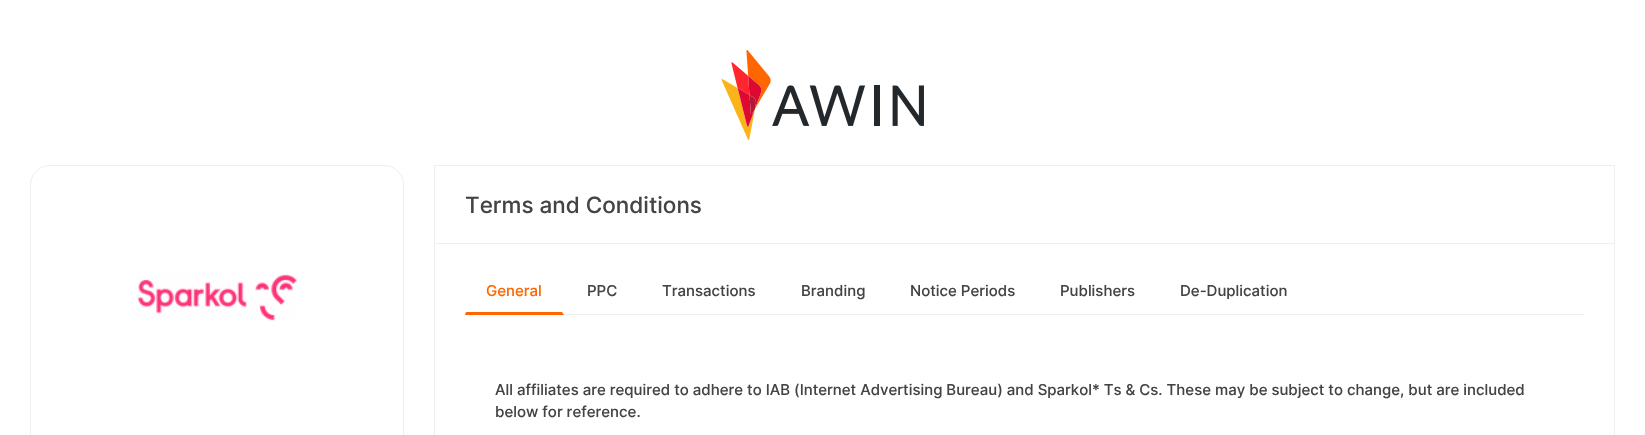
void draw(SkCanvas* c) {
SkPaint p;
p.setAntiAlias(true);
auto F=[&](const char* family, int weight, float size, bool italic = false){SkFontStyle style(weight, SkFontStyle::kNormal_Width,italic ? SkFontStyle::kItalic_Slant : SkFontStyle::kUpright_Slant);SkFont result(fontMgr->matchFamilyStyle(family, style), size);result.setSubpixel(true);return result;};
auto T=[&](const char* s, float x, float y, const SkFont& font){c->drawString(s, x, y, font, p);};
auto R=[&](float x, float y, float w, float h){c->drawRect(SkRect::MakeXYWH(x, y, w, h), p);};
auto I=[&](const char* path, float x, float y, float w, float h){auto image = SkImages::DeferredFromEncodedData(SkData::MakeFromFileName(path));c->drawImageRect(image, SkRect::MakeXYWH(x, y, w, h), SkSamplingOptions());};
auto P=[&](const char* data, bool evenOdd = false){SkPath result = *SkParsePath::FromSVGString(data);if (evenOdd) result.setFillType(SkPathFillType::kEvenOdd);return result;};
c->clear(0xffffffff);
I("1.png",721,50,203,90);
p.setStroke(true);
p.setStrokeWidth(1);
p.setColor(0xffeeeeee);
c->drawRoundRect(SkRect::MakeXYWH(30.5,165.5,373,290),19.5,19.5,p);
I("2.png",137,274,161,47);
c->drawRect(SkRect::MakeXYWH(434.5,165.5,1180,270),p);
p.setStroke(false);
R(435,243,1179,1);
auto f1 = F("Inter",500,22.5);
p.setColor(0xff444444);
T("Terms and Conditions",465,213,f1);
p.setColor(0xffeeeeee);
R(465,314,1119,1);
p.setColor(0xffff6600);
c->drawPath(P("M564 315l-2-3h-96l-1 3z"),p);
auto f2 = F("Inter",500,15);
T("General",486,296,f2);
p.setColor(0xff444444);
T("PPC",587,296,f2);
T("Transactions",662,296,f2);
T("Branding",801,296,f2);
T("Notice Periods",910,296,f2);
T("Publishers",1060,296,f2);
T("De-Duplication",1180,296,f2);
T("All affiliates are required to adhere to IAB (Internet Advertising Bureau) and Sparkol* Ts & Cs. These may be subject to change, but are included",495,395,f2);
T("below for reference.",495,417,f2);
}
